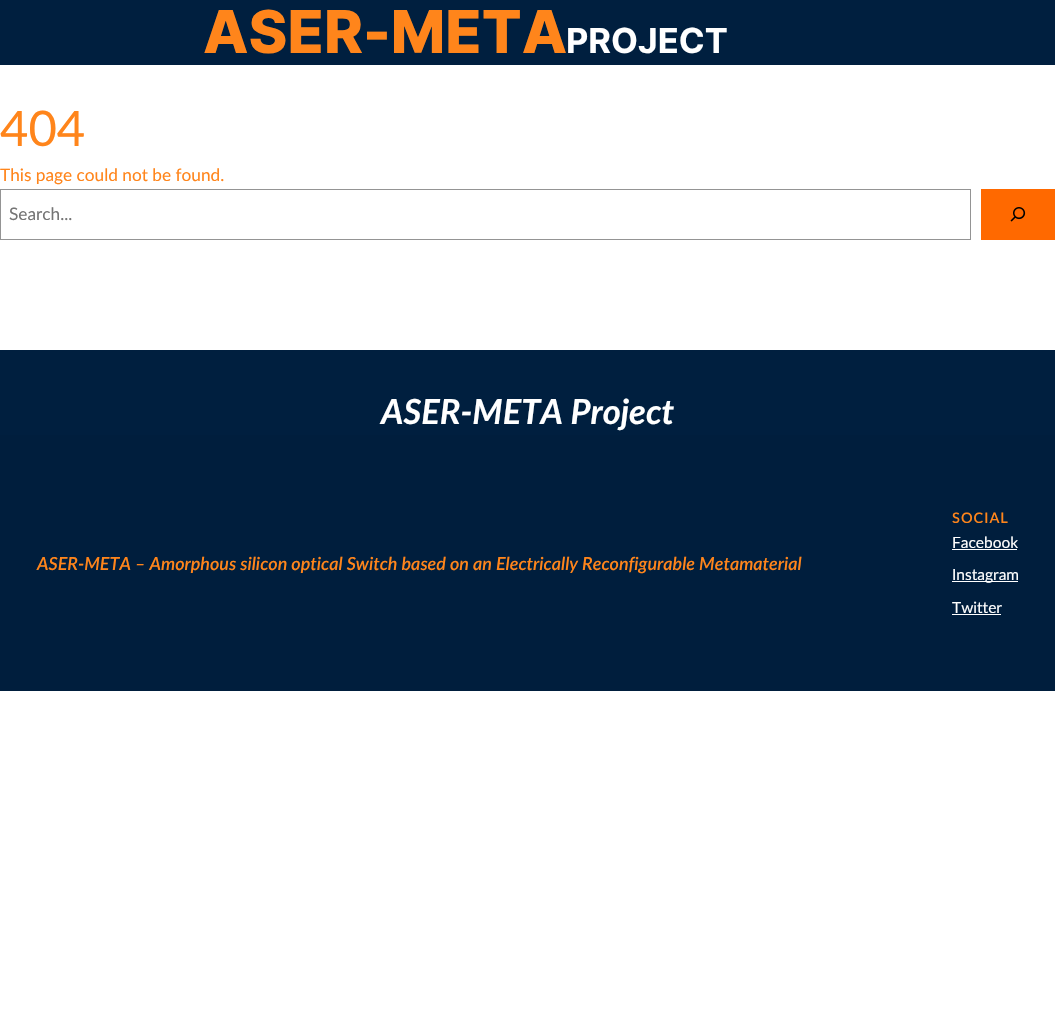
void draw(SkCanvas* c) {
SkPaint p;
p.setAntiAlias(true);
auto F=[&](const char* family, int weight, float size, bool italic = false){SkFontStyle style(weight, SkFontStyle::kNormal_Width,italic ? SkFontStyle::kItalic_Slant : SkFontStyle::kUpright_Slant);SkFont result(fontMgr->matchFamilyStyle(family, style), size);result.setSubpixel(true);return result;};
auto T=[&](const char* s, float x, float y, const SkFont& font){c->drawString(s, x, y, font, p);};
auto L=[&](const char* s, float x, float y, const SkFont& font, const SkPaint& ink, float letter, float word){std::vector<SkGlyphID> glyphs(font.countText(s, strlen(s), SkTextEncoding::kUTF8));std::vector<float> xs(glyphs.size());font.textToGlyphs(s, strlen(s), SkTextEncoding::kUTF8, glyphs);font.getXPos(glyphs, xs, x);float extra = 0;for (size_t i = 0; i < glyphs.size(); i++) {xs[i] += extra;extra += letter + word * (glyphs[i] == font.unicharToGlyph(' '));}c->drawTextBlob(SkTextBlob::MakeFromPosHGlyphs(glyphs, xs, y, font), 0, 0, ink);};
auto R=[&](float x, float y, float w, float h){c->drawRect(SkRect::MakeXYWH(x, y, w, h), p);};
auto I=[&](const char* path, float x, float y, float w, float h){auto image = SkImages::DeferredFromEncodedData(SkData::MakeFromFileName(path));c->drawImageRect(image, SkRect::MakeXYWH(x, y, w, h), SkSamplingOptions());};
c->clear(0xffffffff);
p.setColor(0xff001f3f);
R(0,0,1055,65);
auto f1 = F("Inter",800,59);
p.setColor(0xffff851b);
T("ASER-META",203,53,f1);
auto f2 = F("Inter",700,34.5);
p.setColor(0xffffffff);
T("PROJECT",566,53,f2);
auto f3 = F("Lato",400,49);
p.setColor(0xffff851b);
T("404",0,146,f3);
auto f4 = F("Lato",400,17.25);
T("This page could not be found.",0,181,f4);
p.setStroke(true);
p.setStrokeWidth(1);
p.setColor(0xff949494);
c->drawRect(SkRect::MakeXYWH(.5,189.5,970,50),p);
p.setStroke(false);
p.setColor(0xff757575);
T("Search...",9,220,f4);
p.setColor(0xffff6900);
R(981,189,74,51);
I("1.png",1010,207,16,15);
p.setColor(0xff001f3f);
R(0,350,1055,85);
auto f5 = F("Lato",700,34.5,true);
p.setColor(0xffffffff);
T("ASER-META Project",381,424,f5);
p.setColor(0xff001e3d);
R(0,435,1055,256);
auto f6 = F("Lato",600,17.95,true);
p.setColor(0xffff851b);
T("ASER-META – Amorphous silicon optical Switch based on an Electrically Reconfigurable Metamaterial",37,570,f6);
auto f7 = F("Lato",600,14.5);
L("SOCIAL",952,523,f7,p,1,0);
auto f8 = F("Lato",400,15.5);
p.setColor(0xffffffff);
T("Facebook",952,548,f8);
R(952,549,65,1);
R(952,581,66,1);
T("Instagram",952,580,f8);
T("Twitter",952,613,f8);
R(952,614,49,1);
}
